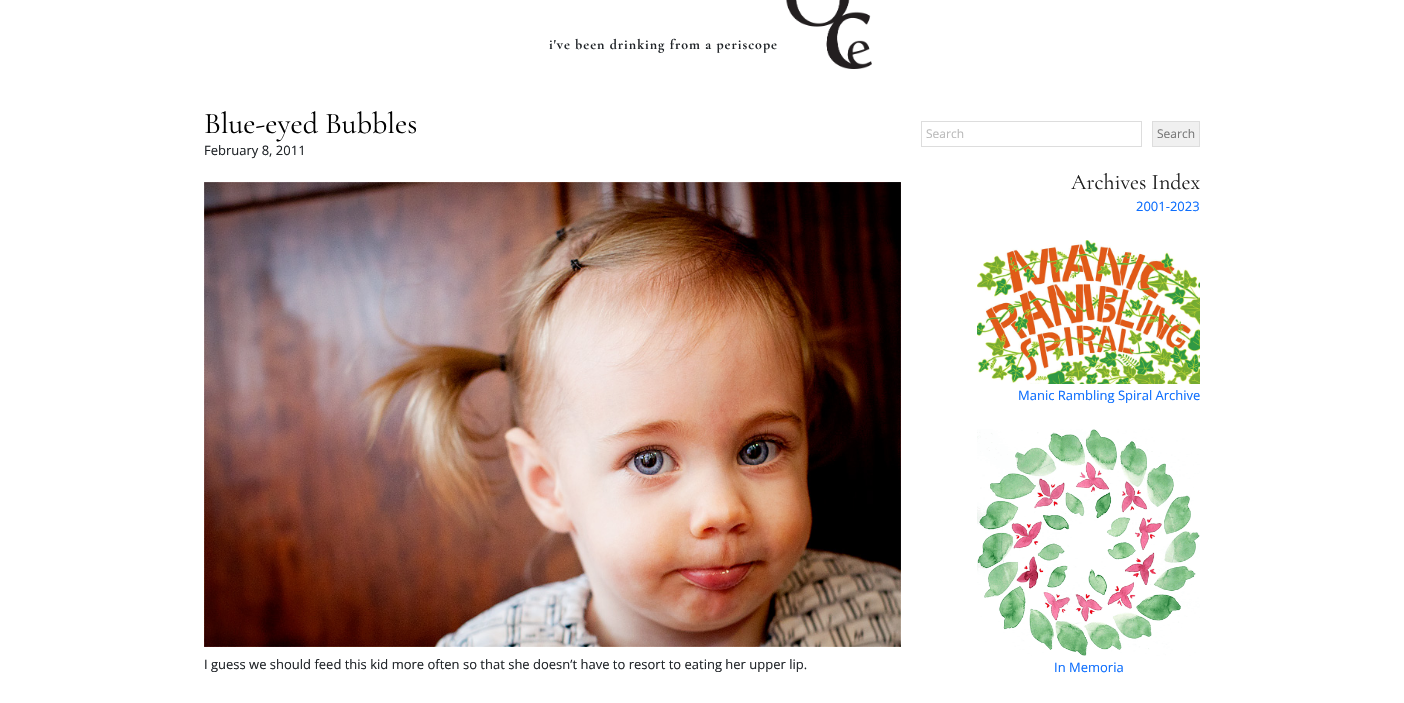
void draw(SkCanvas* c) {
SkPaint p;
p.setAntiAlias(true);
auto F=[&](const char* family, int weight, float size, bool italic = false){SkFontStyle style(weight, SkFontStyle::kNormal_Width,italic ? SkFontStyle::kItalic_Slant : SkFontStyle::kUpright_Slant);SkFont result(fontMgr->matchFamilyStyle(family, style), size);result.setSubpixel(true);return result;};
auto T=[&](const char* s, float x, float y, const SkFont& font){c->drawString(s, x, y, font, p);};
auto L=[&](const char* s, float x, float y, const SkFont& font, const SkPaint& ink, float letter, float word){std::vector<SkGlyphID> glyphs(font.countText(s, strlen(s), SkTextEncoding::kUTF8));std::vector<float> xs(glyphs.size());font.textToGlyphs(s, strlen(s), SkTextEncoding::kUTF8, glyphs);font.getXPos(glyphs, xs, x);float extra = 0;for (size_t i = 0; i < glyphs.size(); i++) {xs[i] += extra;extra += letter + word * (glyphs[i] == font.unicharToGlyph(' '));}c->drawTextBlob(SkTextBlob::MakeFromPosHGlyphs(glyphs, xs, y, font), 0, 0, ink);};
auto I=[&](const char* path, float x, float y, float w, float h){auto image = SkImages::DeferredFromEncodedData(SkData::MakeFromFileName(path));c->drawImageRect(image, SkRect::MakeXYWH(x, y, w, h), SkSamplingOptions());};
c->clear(0xffffffff);
auto f1 = F("Cormorant Garamond",700,14);
p.setColor(0xff212529);
L("i've been drinking from a periscope",549,49,f1,p,1,0);
I("1.png",786,0,86,69);
auto f2 = F("Cormorant Garamond",400,30);
p.setColor(0xff000000);
T("Blue-eyed Bubbles",204,133,f2);
auto f3 = F("Open Sans",400,13);
p.setColor(0xff212529);
T("February 8, 2011",204,155,f3);
I("2.png",204,182,697,465);
T("I guess we should feed this kid more often so that she doesn’t have to resort to eating her upper lip.",204,669,f3);
p.setStroke(true);
p.setStrokeWidth(1);
p.setColor(0xffdddddd);
c->drawRect(SkRect::MakeXYWH(921.5,121.5,220,25),p);
auto f4 = F("Open Sans",400,12);
p.setStroke(false);
p.setColor(0xffbababa);
T("Search",926,138,f4);
p.setColor(0xfff0f0f0);
c->drawRect(SkRect::MakeXYWH(1152.5,121.5,47,25),p);
p.setStroke(true);
p.setColor(0xffdddddd);
c->drawRect(SkRect::MakeXYWH(1152.5,121.5,47,25),p);
p.setStroke(false);
p.setColor(0xff777777);
T("Search",1157,138,f4);
auto f5 = F("Cormorant Garamond",400,22);
p.setColor(0xff222222);
T("Archives Index",1071,189,f5);
p.setColor(0xff0d6efd);
T("2001-2023",1136,211,f3);
I("3.png",977,240,223,144);
T("Manic Rambling Spiral Archive",1018,400,f3);
I("4.png",977,429,223,227);
T("In Memoria",1054,672,f3);
}
